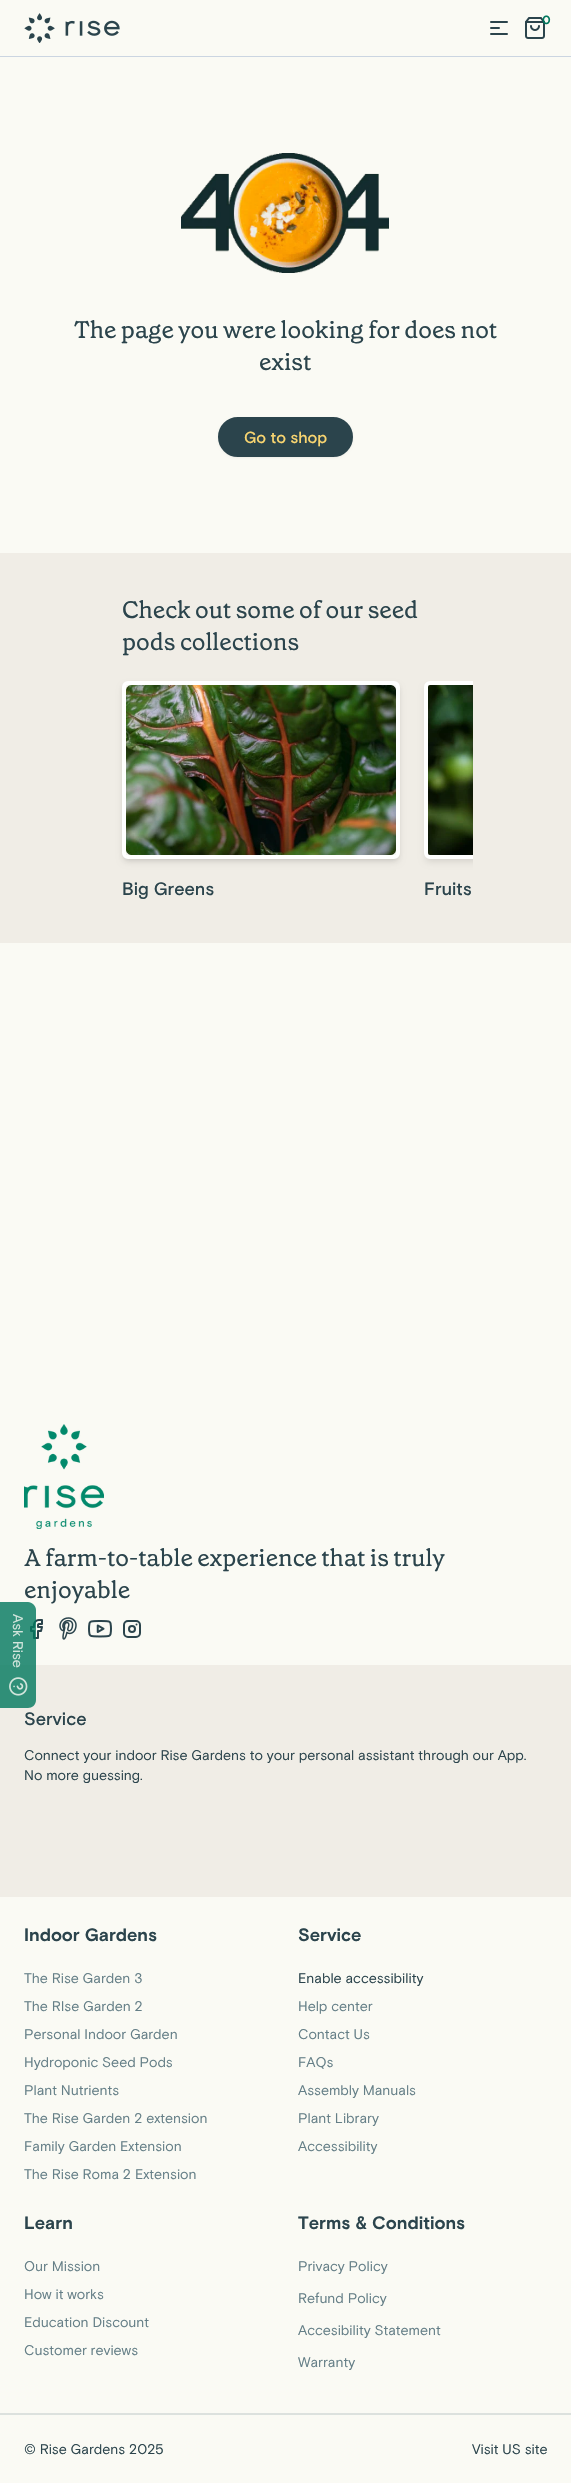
void draw(SkCanvas* c) {
SkPaint p;
p.setAntiAlias(true);
auto F=[&](const char* family, int weight, float size, bool italic = false){SkFontStyle style(weight, SkFontStyle::kNormal_Width,italic ? SkFontStyle::kItalic_Slant : SkFontStyle::kUpright_Slant);SkFont result(fontMgr->matchFamilyStyle(family, style), size);result.setSubpixel(true);return result;};
auto T=[&](const char* s, float x, float y, const SkFont& font){c->drawString(s, x, y, font, p);};
auto R=[&](float x, float y, float w, float h){c->drawRect(SkRect::MakeXYWH(x, y, w, h), p);};
auto I=[&](const char* path, float x, float y, float w, float h){auto image = SkImages::DeferredFromEncodedData(SkData::MakeFromFileName(path));c->drawImageRect(image, SkRect::MakeXYWH(x, y, w, h), SkSamplingOptions());};
auto P=[&](const char* data, bool evenOdd = false){SkPath result = *SkParsePath::FromSVGString(data);if (evenOdd) result.setFillType(SkPathFillType::kEvenOdd);return result;};
c->clear(0xfffafaf4);
p.setColor(0xffcbd5e1);
R(0,56,571,1);
I("1.png",24,13,96,30);
I("2.png",525,17,20,22);
auto f1 = F("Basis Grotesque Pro",700,12);
p.setColor(0xff00775d);
T("0",542,24,f1);
p.setStroke(true);
p.setStrokeWidth(2);
p.setStrokeCap(SkPaint::kRound_Cap);
p.setStrokeJoin(SkPaint::kRound_Join);
p.setColor(0xff2b444c);
c->drawPath(P("M491 22h16m-16 6h8m-8 6h16"),p);
I("3.png",181,153,208,120);
auto f2 = F("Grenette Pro",400,24);
p.setStroke(false);
T("The page you were looking for does not",74,338,f2);
T("exist",259,370,f2);
p.setColor(0x0d000000);
p.setMaskFilter(SkMaskFilter::MakeBlur(kNormal_SkBlurStyle, 1));
c->drawRoundRect(SkRect::MakeXYWH(218,418,135,40),20,20,p);
p.setMaskFilter(nullptr);
p.setColor(0xff2b444c);
c->drawRoundRect(SkRect::MakeXYWH(219,418,133,38),19,19,p);
p.setStroke(true);
p.setStrokeCap(SkPaint::kButt_Cap);
p.setStrokeJoin(SkPaint::kMiter_Join);
c->drawRoundRect(SkRect::MakeXYWH(219,418,133,38),19,19,p);
auto f3 = F("Basis Grotesque Pro",500,16);
p.setStroke(false);
p.setColor(0xfff9d570);
T("Go to shop",244,443,f3);
p.setColor(0xfff0ede6);
R(0,553,571,390);
p.setColor(0xff2b444c);
T("Check out some of our seed",122,618,f2);
T("pods collections",122,650,f2);
p.setColor(0x1a000000);
p.setMaskFilter(SkMaskFilter::MakeBlur(kNormal_SkBlurStyle, 2));
c->drawRoundRect(SkRect::MakeXYWH(124,685,274,174),4,4,p);
p.setMaskFilter(nullptr);
p.setMaskFilter(SkMaskFilter::MakeBlur(kNormal_SkBlurStyle, 3));
c->drawRoundRect(SkRect::MakeXYWH(123,686,276,176),5,5,p);
p.setMaskFilter(nullptr);
p.setStroke(true);
p.setStrokeWidth(4);
p.setColor(0xffffffff);
c->drawRoundRect(SkRect::MakeXYWH(124,683,274,174),4,4,p);
I("4.png",126,685,270,170);
auto f4 = F("Basis Grotesque Pro",500,18);
p.setStroke(false);
p.setColor(0xff2b444c);
T("Big Greens",122,895,f4);
c->save();
c->clipRect(SkRect::MakeXYWH(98,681,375,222));
p.setColor(0x1a000000);
p.setMaskFilter(SkMaskFilter::MakeBlur(kNormal_SkBlurStyle, 3));
c->drawRoundRect(SkRect::MakeXYWH(425,686,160,176),5,5,p);
p.setMaskFilter(nullptr);
c->restore();
c->save();
c->clipRect(SkRect::MakeXYWH(98,681,375,222));
p.setStroke(true);
p.setColor(0xffffffff);
c->drawRoundRect(SkRect::MakeXYWH(426,683,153,174),4,4,p);
c->restore();
I("5.png",428,685,45,170);
p.setStroke(false);
p.setColor(0xff2b444c);
T("Fruits",424,895,f4);
T("enjoyable",24,1598,f2);
I("8.png",30,1619,13,20);
p.setColor(0xfff0ede6);
c->drawPath(P("M84 1665v40h463v152h-463v40h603v-232z"),p);
c->drawPath(P("M-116 1665v232h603v-40h-463v-152h463v-40z"),p);
R(24,1705,523,152);
p.setColor(0xcc00775d);
c->drawPath(P("M36 1610v90c0 5-4 8-8 8h-28v-106h28c4 0 8 4 8 8z"),p);
auto f5 = F("Basis Grotesque Pro",400,14);
p.setColor(0xffd2e5dc);
c->save();
c->rotate(90,13,1614);
T("Ask Rise",13,1614,f5);
c->restore();
I("6.png",9,1677,19,19);
I("7.png",24,1424,80,105);
p.setColor(0xff2b444c);
T("A farm-to-table experience that is truly",24,1566,f2);
I("9.png",59,1617,18,23);
I("10.png",88,1620,24,18);
p.setStroke(true);
p.setStrokeWidth(2);
c->drawRoundRect(SkRect::MakeXYWH(124,1621,16,16),4,4,p);
c->drawCircle(132,1629,3,p);
p.setStrokeCap(SkPaint::kRound_Cap);
p.setStrokeJoin(SkPaint::kRound_Join);
c->drawPath(P("M136.5 1624.5h0"),p);
p.setStroke(false);
T("Service",24,1725,f4);
T("Connect your indoor Rise Gardens to your personal assistant through our App.",24,1760,f5);
T("No more guessing.",24,1780,f5);
auto f6 = F("Basis Grotesque Pro",700,18);
T("Indoor Gardens",24,1941,f6);
p.setColor(0xff657f87);
T("The Rise Garden 3",24,1983,f5);
T("The RIse Garden 2",24,2011,f5);
T("Personal Indoor Garden",24,2039,f5);
T("Hydroponic Seed Pods",24,2067,f5);
T("Plant Nutrients",24,2095,f5);
T("The Rise Garden 2 extension",24,2123,f5);
T("Family Garden Extension",24,2151,f5);
T("The Rise Roma 2 Extension",24,2179,f5);
p.setColor(0xff2b444c);
T("Service",298,1941,f6);
T("Enable accessibility",298,1983,f5);
p.setColor(0xff657f87);
T("Help center",298,2011,f5);
T("Contact Us",298,2039,f5);
T("FAQs",298,2067,f5);
T("Assembly Manuals",298,2095,f5);
T("Plant Library",298,2123,f5);
T("Accessibility",298,2151,f5);
p.setColor(0xff2b444c);
T("Learn",24,2229,f6);
p.setColor(0xff657f87);
T("Our Mission",24,2271,f5);
T("How it works",24,2299,f5);
T("Education Discount",24,2327,f5);
T("Customer reviews",24,2355,f5);
p.setColor(0xff2b444c);
T("Terms & Conditions",298,2229,f6);
p.setColor(0xff657f87);
T("Privacy Policy",298,2271,f5);
T("Refund Policy",298,2303,f5);
T("Accesibility Statement",298,2335,f5);
T("Warranty",298,2367,f5);
p.setColor(0xffdce1de);
R(0,2413,571,2);
p.setColor(0xff2b444c);
T("© Rise Gardens 2025",24,2454,f5);
T("Visit US site",472,2454,f5);
}
